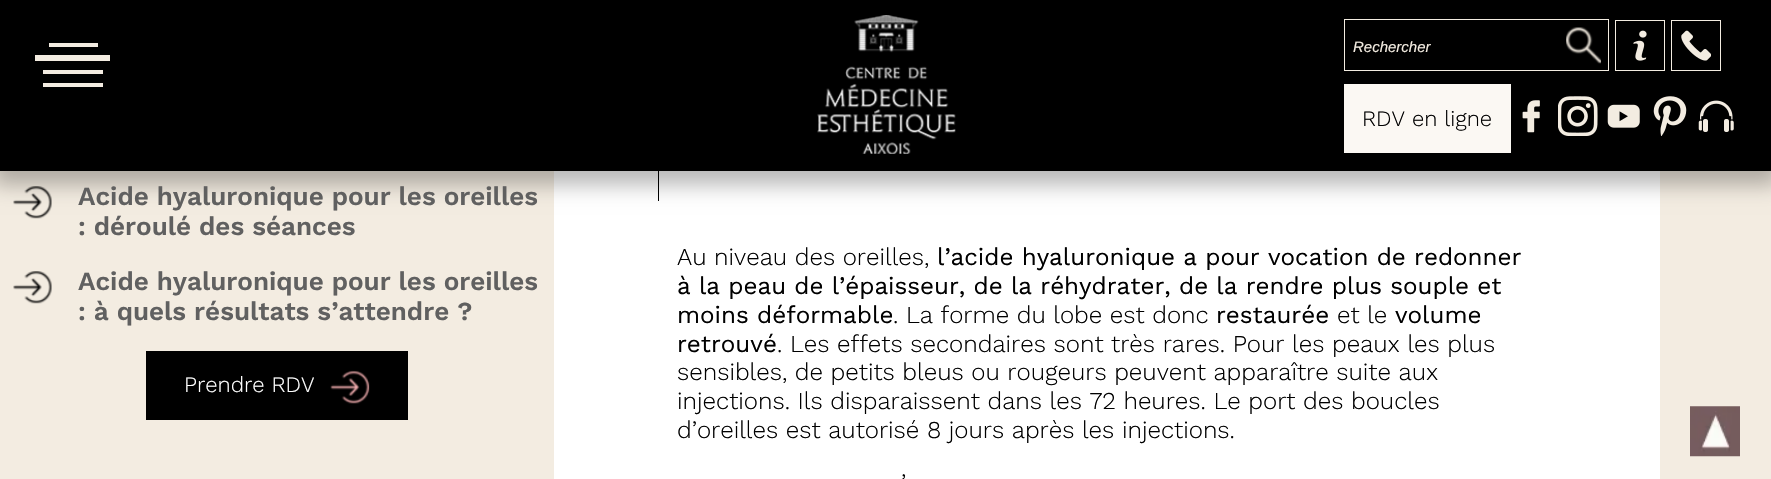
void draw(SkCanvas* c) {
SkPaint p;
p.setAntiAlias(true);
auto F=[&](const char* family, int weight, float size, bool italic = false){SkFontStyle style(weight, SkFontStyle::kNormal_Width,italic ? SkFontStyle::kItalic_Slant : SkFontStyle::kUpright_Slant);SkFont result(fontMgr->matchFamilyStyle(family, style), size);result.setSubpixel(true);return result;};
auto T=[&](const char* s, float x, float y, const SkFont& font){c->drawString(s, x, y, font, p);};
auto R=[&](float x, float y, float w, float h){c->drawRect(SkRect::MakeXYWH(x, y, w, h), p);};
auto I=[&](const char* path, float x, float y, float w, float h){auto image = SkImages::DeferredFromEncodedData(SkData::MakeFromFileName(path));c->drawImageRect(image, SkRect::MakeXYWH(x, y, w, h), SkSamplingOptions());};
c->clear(0xffffffff);
p.setColor(0xfff3ece1);
R(0,171,554,308);
I("10.png",13,186,39,33);
p.setColor(0xff000000);
R(658,171,1,30);
p.setColor(0xfff3ece1);
R(1660,171,111,308);
p.setColor(0x47000000);
p.setMaskFilter(SkMaskFilter::MakeBlur(kNormal_SkBlurStyle, 10));
c->drawRect(SkRect::MakeXYWH(-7,-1,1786,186),p);
p.setMaskFilter(nullptr);
p.setColor(0xff000000);
R(0,0,1771,171);
p.setColor(0xfff3ece1);
R(49,43,49,4);
R(35,55,75,6);
R(43,70,60,4);
R(43,83,60,4);
I("1.png",817,15,139,139);
p.setStroke(true);
p.setStrokeWidth(1);
c->drawRect(SkRect::MakeXYWH(1344.5,19.5,264,51),p);
auto f1 = F("Liberation Sans",400,15,true);
p.setStroke(false);
T("Rechercher",1353,52,f1);
I("2.png",1566,27,35,37);
p.setStroke(true);
c->drawRect(SkRect::MakeXYWH(1615.5,20.5,49,50),p);
I("3.png",1633,30,14,31);
c->drawRect(SkRect::MakeXYWH(1671.5,20.5,49,50),p);
I("4.png",1681,30,30,31);
p.setStroke(false);
p.setColor(0xfffbf8f3);
R(1344,84,167,69);
auto f2 = F("Work Sans",300,22);
p.setColor(0xff000000);
T("RDV en ligne",1362,126,f2);
I("5.png",1522,100,18,33);
I("6.png",1558,96,40,40);
I("7.png",1607,104,33,24);
I("8.png",1653,96,34,40);
I("9.png",1698,100,36,32);
auto f3 = F("Work Sans",600,26);
p.setColor(0xff606060);
T("Acide hyaluronique pour les oreilles",78,205,f3);
T(": déroulé des séances",78,235,f3);
I("10.png",13,271,39,33);
T("Acide hyaluronique pour les oreilles",78,290,f3);
T(": à quels résultats s’attendre ?",78,320,f3);
p.setColor(0xff000000);
R(146,351,262,69);
p.setColor(0xffffffff);
T("Prendre RDV",184,392,f2);
I("11.png",330,370,40,34);
auto f4 = F("Work Sans",300,24.2);
p.setColor(0xff000000);
T("Au niveau des oreilles,",677,265,f4);
auto f5 = F("Work Sans",400,24.2);
T("l’acide hyaluronique a pour vocation de redonner",937,265,f5);
T("à la peau de l’épaisseur, de la réhydrater, de la rendre plus souple et",677,294,f5);
T("moins déformable",677,323,f5);
T(". La forme du lobe est donc",893,323,f4);
T("restaurée",1216,323,f5);
T("et le",1337,323,f4);
T("volume",1395,323,f5);
T("retrouvé",677,352,f5);
T(". Les effets secondaires sont très rares. Pour les peaux les plus",777,352,f4);
T("sensibles, de petits bleus ou rougeurs peuvent apparaître suite aux",677,380,f4);
T("injections. Ils disparaissent dans les 72 heures. Le port des boucles",677,409,f4);
T("d’oreilles est autorisé 8 jours après les injections.",677,438,f4);
T("’",901,491,f4);
I("12.png",1690,406,50,51);
}
